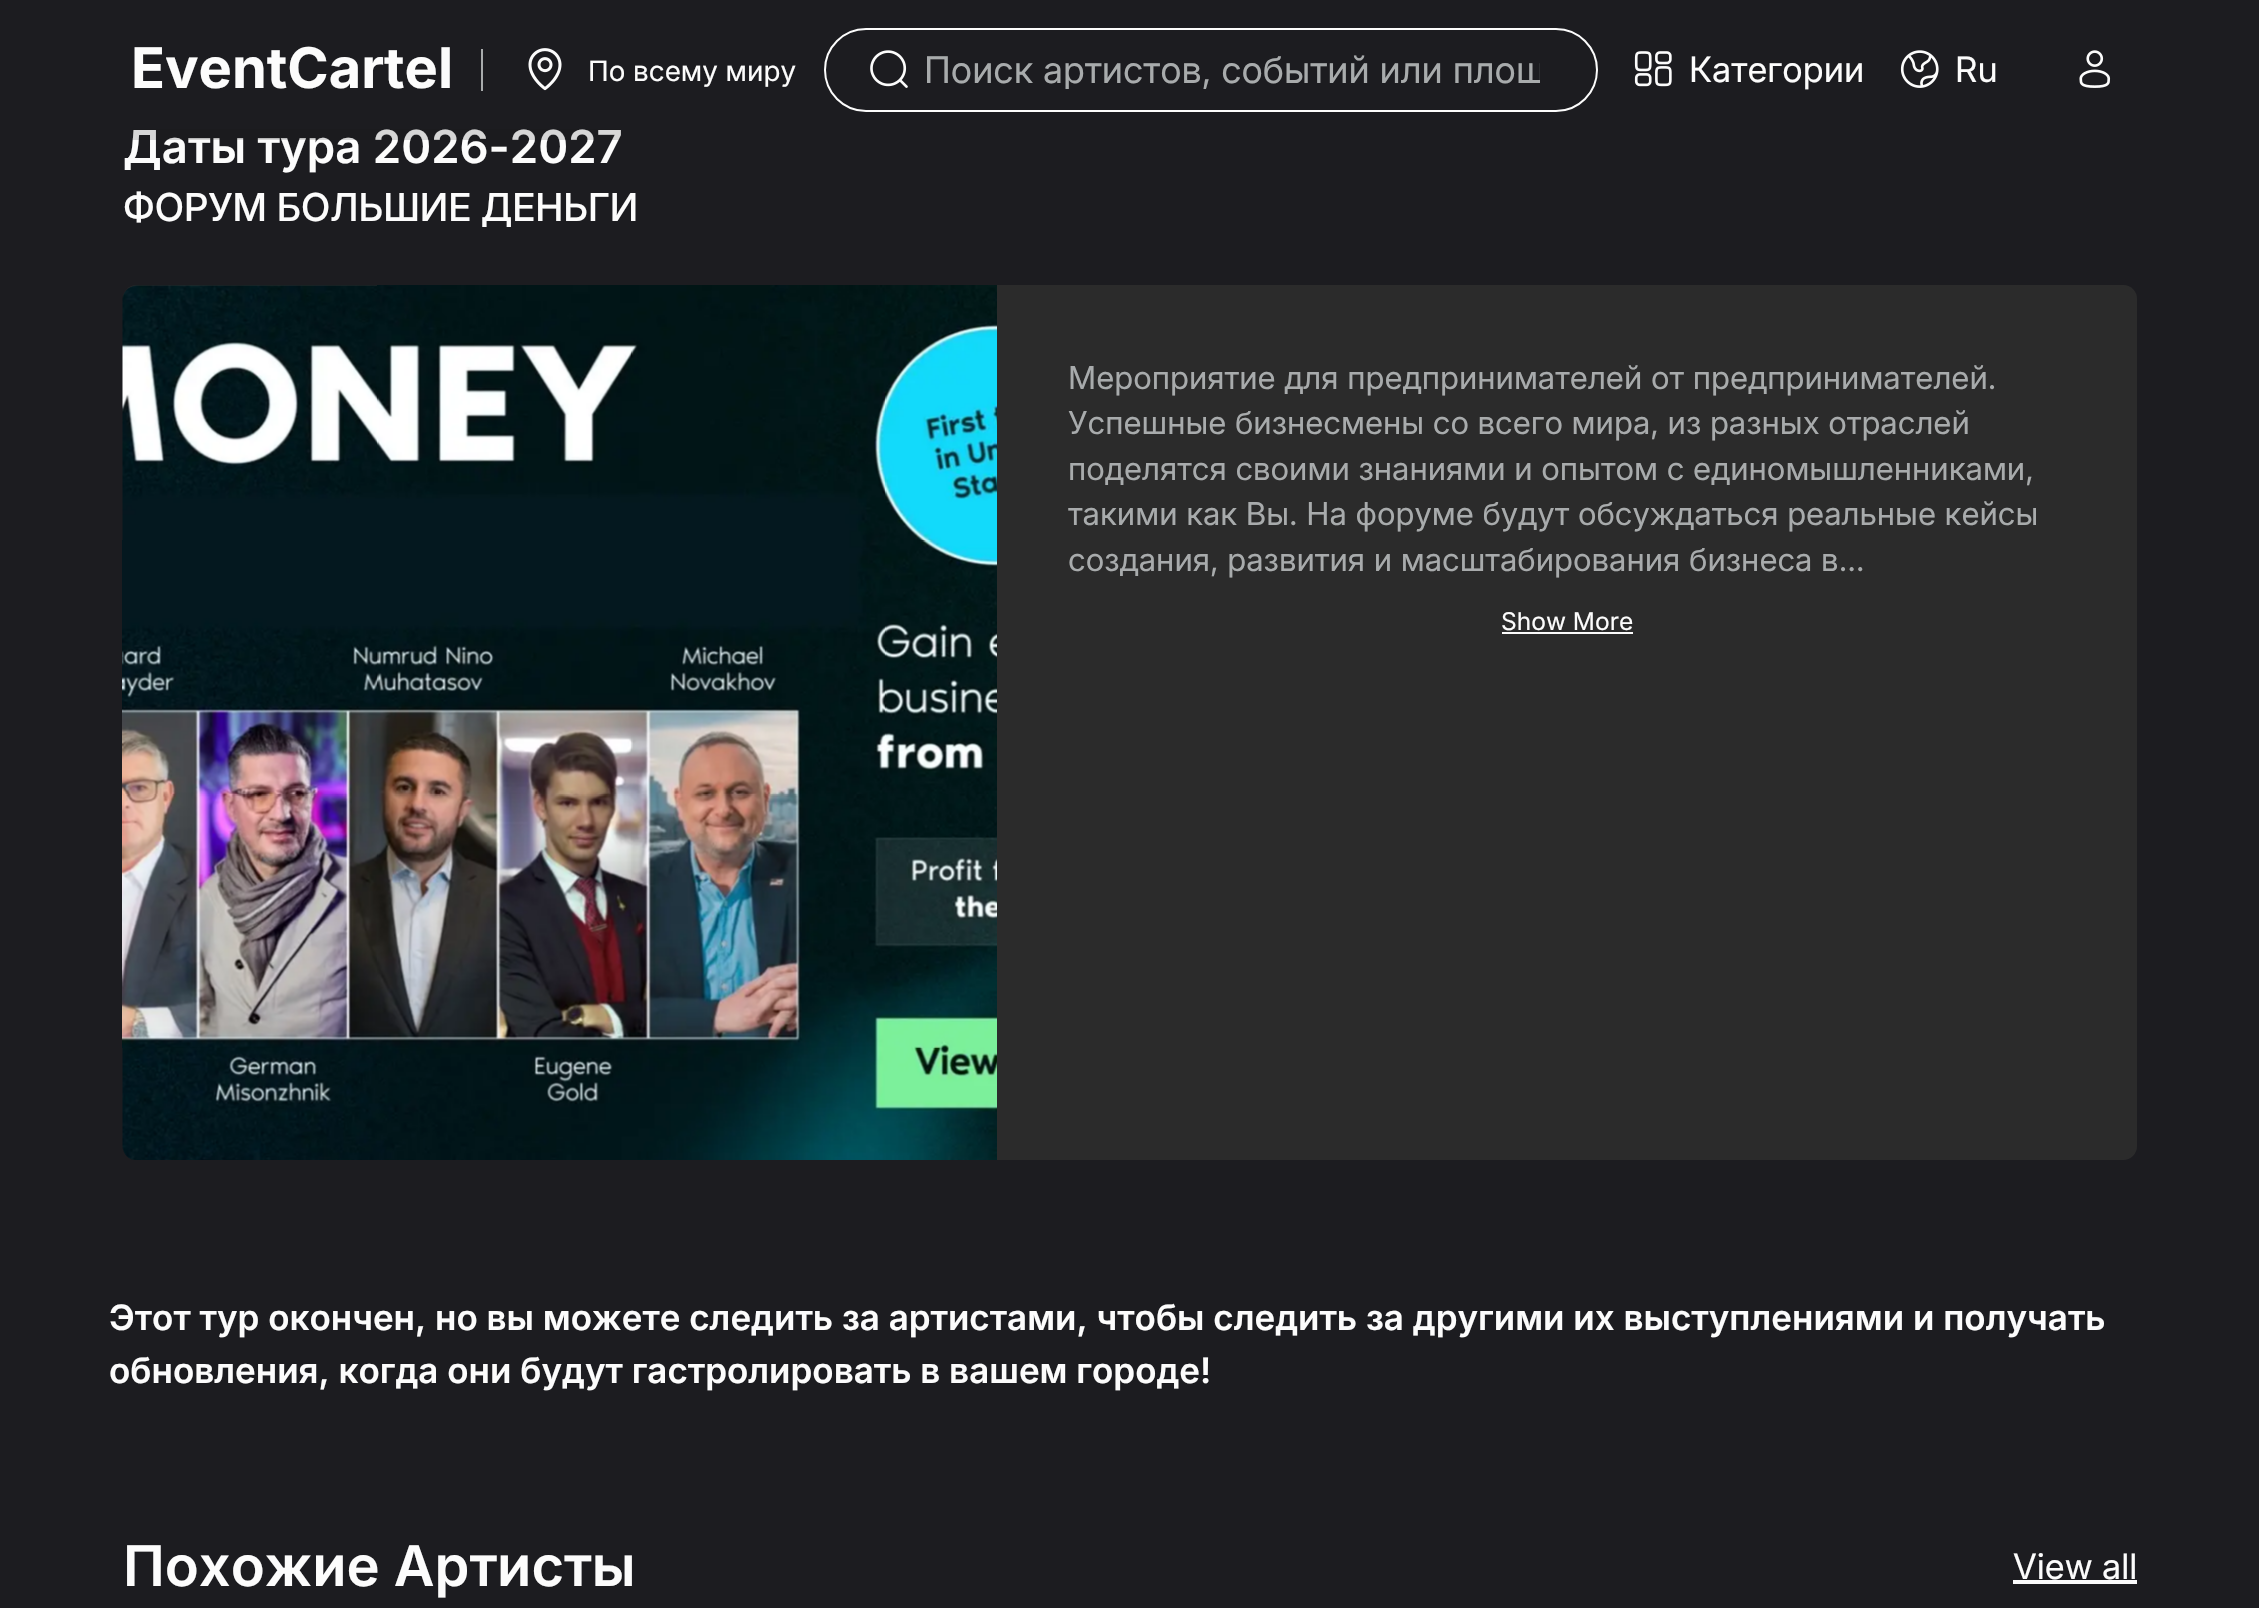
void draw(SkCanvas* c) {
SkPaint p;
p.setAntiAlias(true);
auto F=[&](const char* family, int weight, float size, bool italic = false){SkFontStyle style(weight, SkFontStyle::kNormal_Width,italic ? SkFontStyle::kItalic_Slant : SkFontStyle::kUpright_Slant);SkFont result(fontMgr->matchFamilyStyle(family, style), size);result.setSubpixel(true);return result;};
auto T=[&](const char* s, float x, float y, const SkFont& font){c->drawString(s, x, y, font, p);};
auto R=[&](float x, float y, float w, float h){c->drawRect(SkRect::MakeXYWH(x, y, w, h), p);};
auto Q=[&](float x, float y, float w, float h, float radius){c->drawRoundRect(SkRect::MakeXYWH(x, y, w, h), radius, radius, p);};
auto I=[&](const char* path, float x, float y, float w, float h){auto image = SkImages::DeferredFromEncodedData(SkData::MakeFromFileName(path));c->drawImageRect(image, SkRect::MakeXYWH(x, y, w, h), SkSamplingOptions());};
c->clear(0xff1c1c20);
auto f1 = F("Inter",600,45.5);
p.setColor(0xfffcfcfc);
T("Даты тура 2026-2027",123,163,f1);
p.setColor(0x29151412);
R(132,129,489,11);
auto f2 = F("Inter",700,56);
p.setColor(0xfffcfcfc);
T("EventCartel",131,88,f2);
p.setColor(0xffa8abac);
R(481,49,2,42);
I("1.png",528,48,34,43);
auto f3 = F("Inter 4",400,28);
p.setColor(0xfffcfcfc);
T("По всему миру",588,81,f3);
p.setStroke(true);
p.setStrokeWidth(2);
c->drawRoundRect(SkRect::MakeXYWH(825,29,772,82),41,41,p);
I("2.png",870,50,38,38);
c->save();
c->clipRect(SkRect::MakeXYWH(924,51,616,38));
auto f4 = F("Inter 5",400,36.75);
p.setStroke(false);
p.setColor(0xffa8abac);
T("Поиск артистов, событий или площ",924,83,f4);
c->restore();
I("3.png",1634,51,38,36);
auto f5 = F("Inter",400,35);
p.setColor(0xfffcfcfc);
T("Категории",1689,82,f5);
I("4.png",1900,50,39,38);
T("Ru",1955,82,f5);
I("5.png",2079,50,32,38);
auto f6 = F("Inter",500,38.5);
T("ФОРУМ БОЛЬШИЕ ДЕНЬГИ",123,221,f6);
p.setColor(0xff2b2b2b);
Q(123,285,2014,875,14);
I("6.png",122,285,875,875);
auto f7 = F("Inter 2",400,31.5);
p.setColor(0xffa8abac);
T("Мероприятие для предпринимателей от предпринимателей.",1068,389,f7);
T("Успешные бизнесмены со всего мира, из разных отраслей",1068,434,f7);
T("поделятся своими знаниями и опытом с единомышленниками,",1068,480,f7);
T("такими как Вы. На форуме будут обсуждаться реальные кейсы",1068,525,f7);
T("создания, развития и масштабирования бизнеса в…",1068,571,f7);
auto f8 = F("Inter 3",400,24.5);
p.setColor(0xfffcfcfc);
T("Show More",1501,630,f8);
R(1502,632,131,2);
auto f9 = F("Inter",600,35);
T("Этот тур окончен, но вы можете следить за артистами, чтобы следить за другими их выступлениями и получать",109,1330,f9);
T("обновления, когда они будут гастролировать в вашем городе!",109,1383,f9);
auto f10 = F("Inter",600,56);
T("Похожие Артисты",123,1586,f10);
T("View all",2013,1579,f5);
R(2013,1580,124,4);
}
